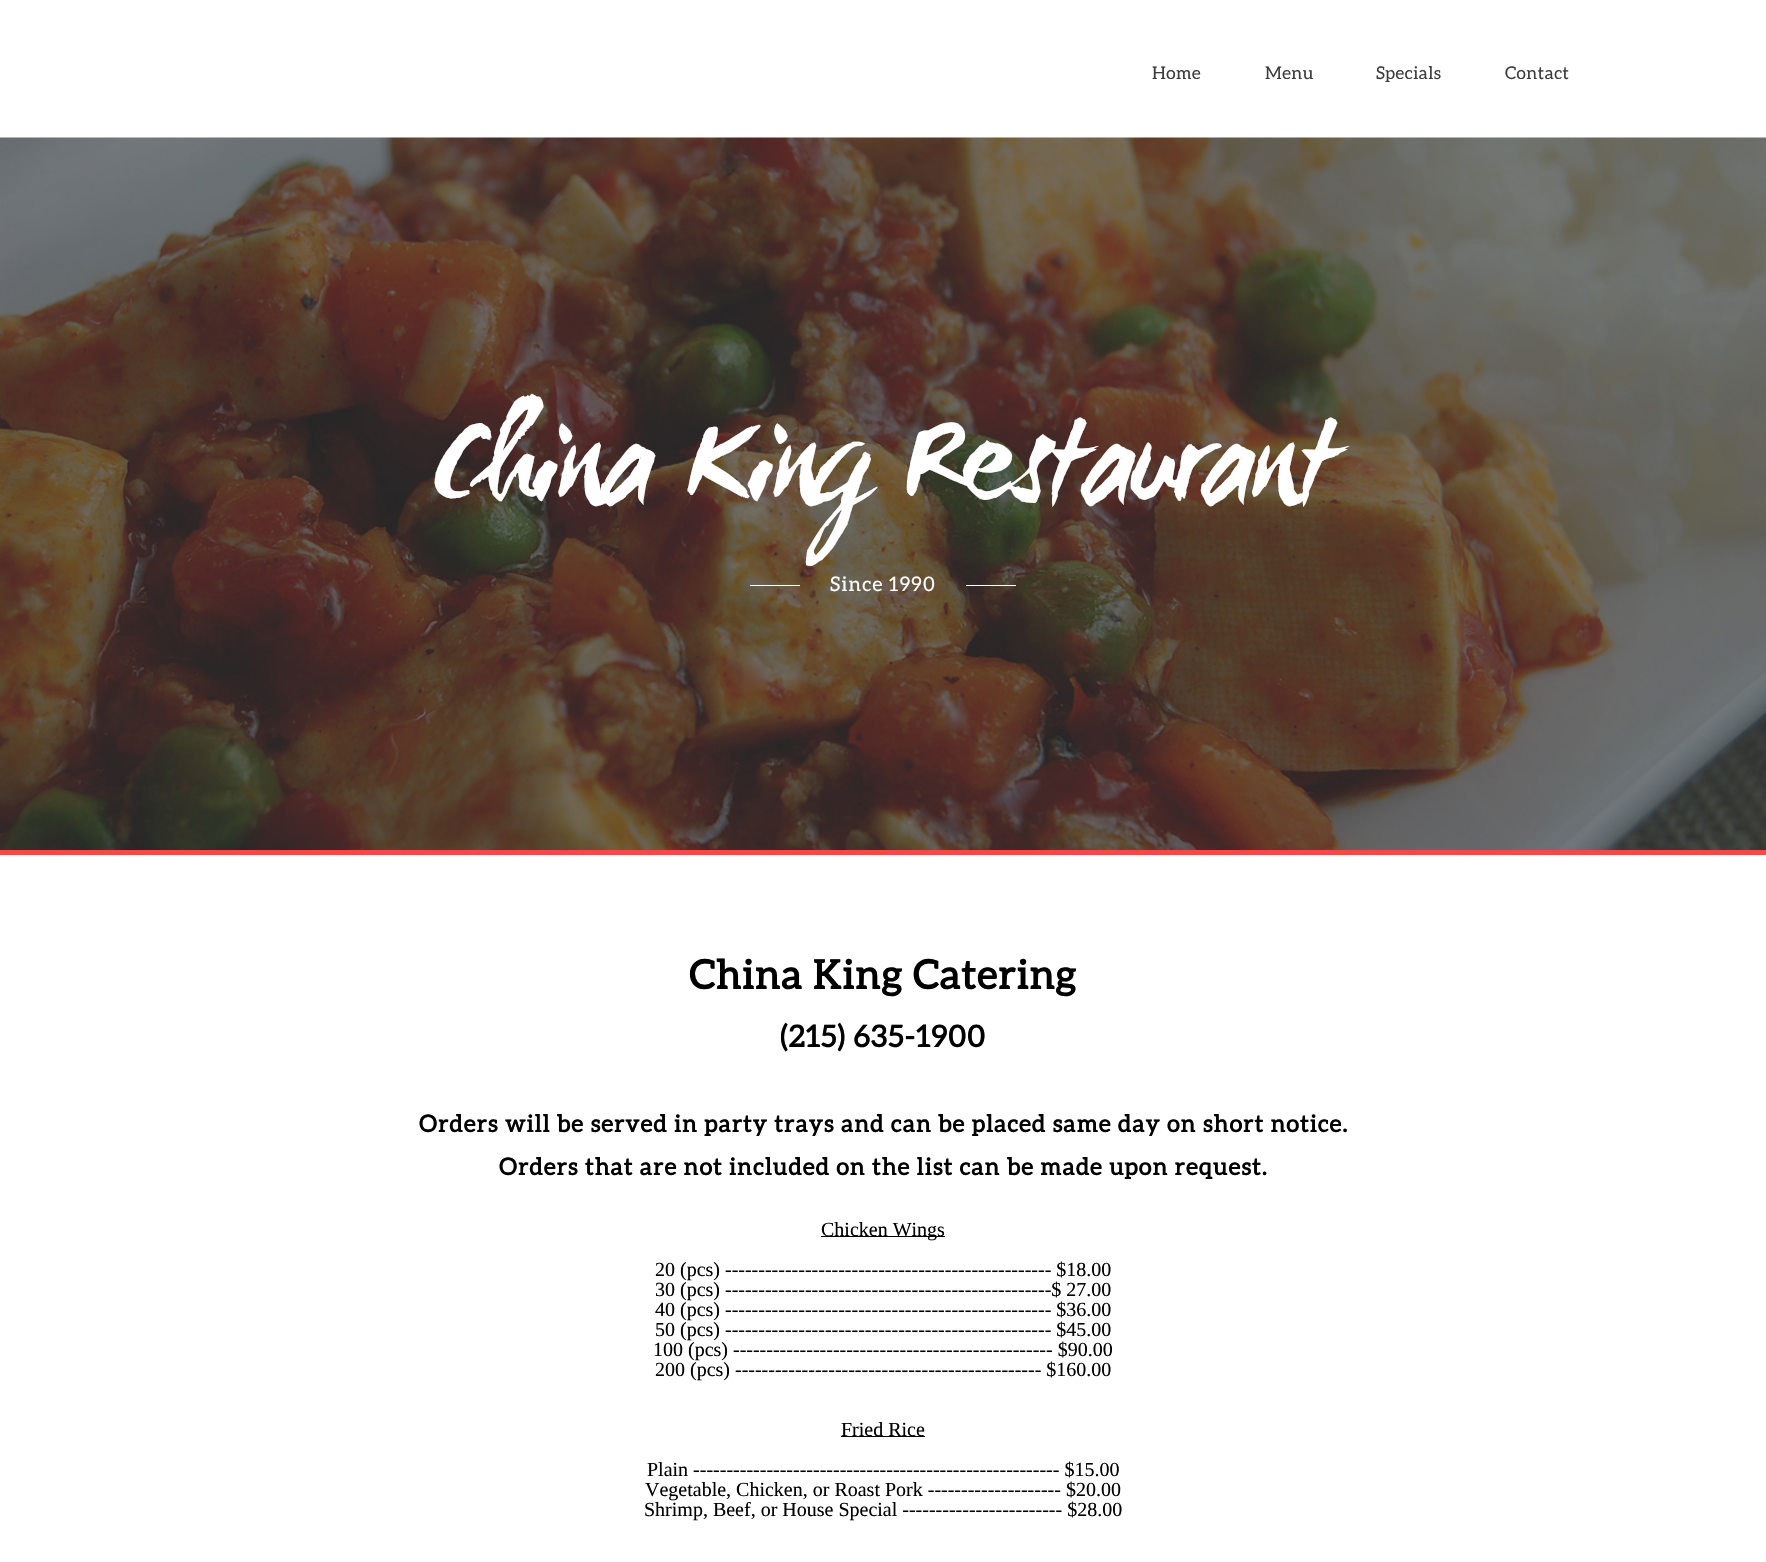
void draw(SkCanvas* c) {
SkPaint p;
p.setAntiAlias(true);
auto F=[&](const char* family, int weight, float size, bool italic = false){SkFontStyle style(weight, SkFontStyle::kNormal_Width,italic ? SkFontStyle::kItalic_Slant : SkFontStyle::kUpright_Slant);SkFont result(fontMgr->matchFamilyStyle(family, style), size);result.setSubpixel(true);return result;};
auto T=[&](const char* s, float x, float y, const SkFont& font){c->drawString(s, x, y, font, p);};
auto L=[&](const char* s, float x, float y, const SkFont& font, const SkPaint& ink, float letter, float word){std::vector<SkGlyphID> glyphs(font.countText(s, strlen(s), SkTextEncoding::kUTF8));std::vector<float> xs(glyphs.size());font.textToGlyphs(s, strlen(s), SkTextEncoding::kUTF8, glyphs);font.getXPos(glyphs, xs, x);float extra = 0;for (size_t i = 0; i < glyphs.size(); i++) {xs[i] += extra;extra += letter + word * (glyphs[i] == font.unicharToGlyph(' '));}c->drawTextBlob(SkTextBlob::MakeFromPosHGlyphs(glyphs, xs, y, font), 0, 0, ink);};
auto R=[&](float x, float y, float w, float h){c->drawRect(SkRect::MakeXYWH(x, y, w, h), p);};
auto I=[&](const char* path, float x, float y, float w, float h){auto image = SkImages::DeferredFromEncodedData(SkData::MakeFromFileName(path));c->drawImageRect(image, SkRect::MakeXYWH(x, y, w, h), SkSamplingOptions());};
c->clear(0xffffffff);
auto f1 = F("Aleo",400,17.5);
p.setColor(0xff3b3b3b);
L("Home",1152,79,f1,p,.5,0);
L("Menu",1265,79,f1,p,.5,0);
L("Specials",1376,79,f1,p,.5,0);
L("Contact",1505,79,f1,p,.5,0);
I("1.png",0,137,1766,713);
auto f2 = F("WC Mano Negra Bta",400,125);
p.setColor(0xffffffff);
L("China King Restaurant",433,493,f2,p,-6.25,0);
R(750,585,50,1);
auto f3 = F("Aleo",400,20);
L("Since 1990",830,591,f3,p,1.25,0);
R(966,585,50,1);
p.setColor(0xfff34949);
R(0,850,1766,5);
auto f4 = F("Aleo",700,40);
p.setColor(0xff000000);
L("China King Catering",689,989,f4,p,1.25,0);
auto f5 = F("Aleo",700,30);
L("(215) 635-1900",780,1047,f5,p,1.25,0);
auto f6 = F("Aleo",700,23.4);
L("Orders will be served in party trays and can be placed same day on short notice.",419,1132,f6,p,1.25,0);
L("Orders that are not included on the list can be made upon request.",499,1175,f6,p,1.25,0);
R(821,1236,124,1);
auto f7 = F("Liberation Serif",400,20);
T("Chicken Wings",821,1236,f7);
T("20 (pcs) ------------------------------------------------- $18.00",655,1276,f7);
T("30 (pcs) -------------------------------------------------$ 27.00",655,1296,f7);
T("40 (pcs) ------------------------------------------------- $36.00",655,1316,f7);
T("50 (pcs) ------------------------------------------------- $45.00",655,1336,f7);
T("100 (pcs) ------------------------------------------------ $90.00",653,1356,f7);
T("200 (pcs) ---------------------------------------------- $160.00",655,1376,f7);
R(841,1436,84,1);
T("Fried Rice",841,1436,f7);
T("Plain ------------------------------------------------------- $15.00",647,1476,f7);
T("Vegetable, Chicken, or Roast Pork -------------------- $20.00",645,1496,f7);
T("Shrimp, Beef, or House Special ------------------------ $28.00",644,1516,f7);
}
